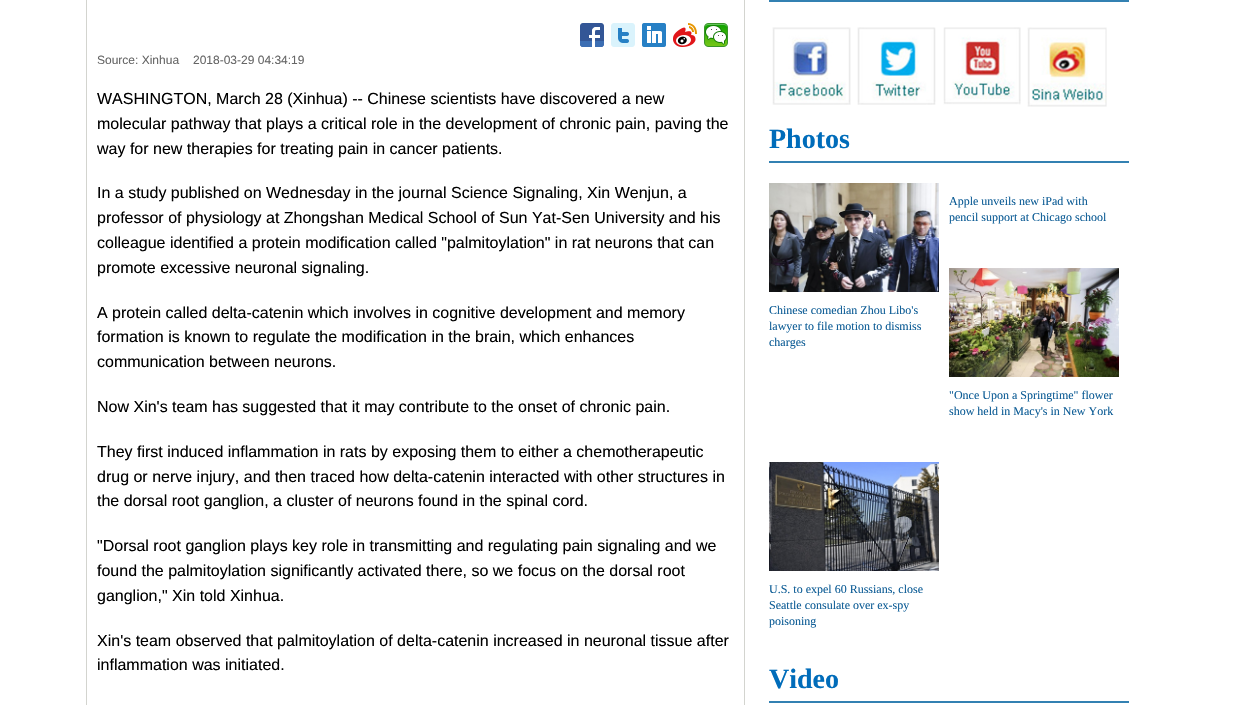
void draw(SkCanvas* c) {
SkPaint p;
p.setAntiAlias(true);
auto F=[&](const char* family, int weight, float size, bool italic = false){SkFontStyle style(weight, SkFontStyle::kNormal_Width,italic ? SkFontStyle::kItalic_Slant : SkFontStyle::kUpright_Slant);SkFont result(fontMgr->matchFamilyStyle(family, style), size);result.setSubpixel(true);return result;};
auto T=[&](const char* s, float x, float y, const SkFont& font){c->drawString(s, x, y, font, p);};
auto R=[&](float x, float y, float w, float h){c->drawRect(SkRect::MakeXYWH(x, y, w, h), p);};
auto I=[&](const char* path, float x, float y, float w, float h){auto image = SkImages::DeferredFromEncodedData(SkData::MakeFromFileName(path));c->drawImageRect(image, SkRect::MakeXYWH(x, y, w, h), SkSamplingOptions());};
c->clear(0xffffffff);
p.setColor(0xffd3d4cf);
R(744,0,1,705);
R(86,0,1,705);
I("1.png",580,23,24,24);
I("2.png",611,23,24,24);
I("3.png",642,23,24,24);
I("4.png",673,23,24,24);
I("5.png",704,23,24,24);
auto f1 = F("Liberation Sans",400,12);
p.setColor(0xff666666);
T("Source: Xinhua",97,64,f1);
T("2018-03-29 04:34:19",193,64,f1);
auto f2 = F("Liberation Sans",400,16);
p.setColor(0xff000000);
T("WASHINGTON, March 28 (Xinhua) -- Chinese scientists have discovered a new",97,104,f2);
T("molecular pathway that plays a critical role in the development of chronic pain, paving the",97,129,f2);
T("way for new therapies for treating pain in cancer patients.",97,154,f2);
T("In a study published on Wednesday in the journal Science Signaling, Xin Wenjun, a",97,198,f2);
T("professor of physiology at Zhongshan Medical School of Sun Yat-Sen University and his",97,223,f2);
T("colleague identified a protein modification called \"palmitoylation\" in rat neurons that can",97,248,f2);
T("promote excessive neuronal signaling.",97,273,f2);
T("A protein called delta-catenin which involves in cognitive development and memory",97,318,f2);
T("formation is known to regulate the modification in the brain, which enhances",97,342,f2);
T("communication between neurons.",97,367,f2);
T("Now Xin's team has suggested that it may contribute to the onset of chronic pain.",97,412,f2);
T("They first induced inflammation in rats by exposing them to either a chemotherapeutic",97,457,f2);
T("drug or nerve injury, and then traced how delta-catenin interacted with other structures in",97,482,f2);
T("the dorsal root ganglion, a cluster of neurons found in the spinal cord.",97,506,f2);
T("\"Dorsal root ganglion plays key role in transmitting and regulating pain signaling and we",97,551,f2);
T("found the palmitoylation significantly activated there, so we focus on the dorsal root",97,576,f2);
T("ganglion,\" Xin told Xinhua.",97,601,f2);
T("Xin's team observed that palmitoylation of delta-catenin increased in neuronal tissue after",97,646,f2);
T("inflammation was initiated.",97,670,f2);
p.setColor(0xff3381b2);
R(769,0,360,2);
I("6.png",772,27,79,78);
I("7.png",857,27,79,78);
I("8.png",943,27,78,78);
I("9.png",1027,27,80,80);
R(769,161,360,2);
auto f3 = F("Liberation Serif",700,28);
p.setColor(0xff006cba);
T("Photos",769,148,f3);
auto f4 = F("Liberation Serif",400,12);
p.setColor(0xff0e5d96);
T("Apple unveils new iPad with",949,205,f4);
T("pencil support at Chicago school",949,221,f4);
I("10.png",769,183,170,109);
T("Chinese comedian Zhou Libo's",769,314,f4);
T("lawyer to file motion to dismiss",769,330,f4);
T("charges",769,346,f4);
I("11.png",949,268,170,109);
T("\"Once Upon a Springtime\" flower",949,399,f4);
T("show held in Macy's in New York",949,415,f4);
I("12.png",769,462,170,109);
T("U.S. to expel 60 Russians, close",769,593,f4);
T("Seattle consulate over ex-spy",769,609,f4);
T("poisoning",769,625,f4);
p.setColor(0xff3381b2);
R(769,701,360,2);
p.setColor(0xff006cba);
T("Video",769,688,f3);
}
